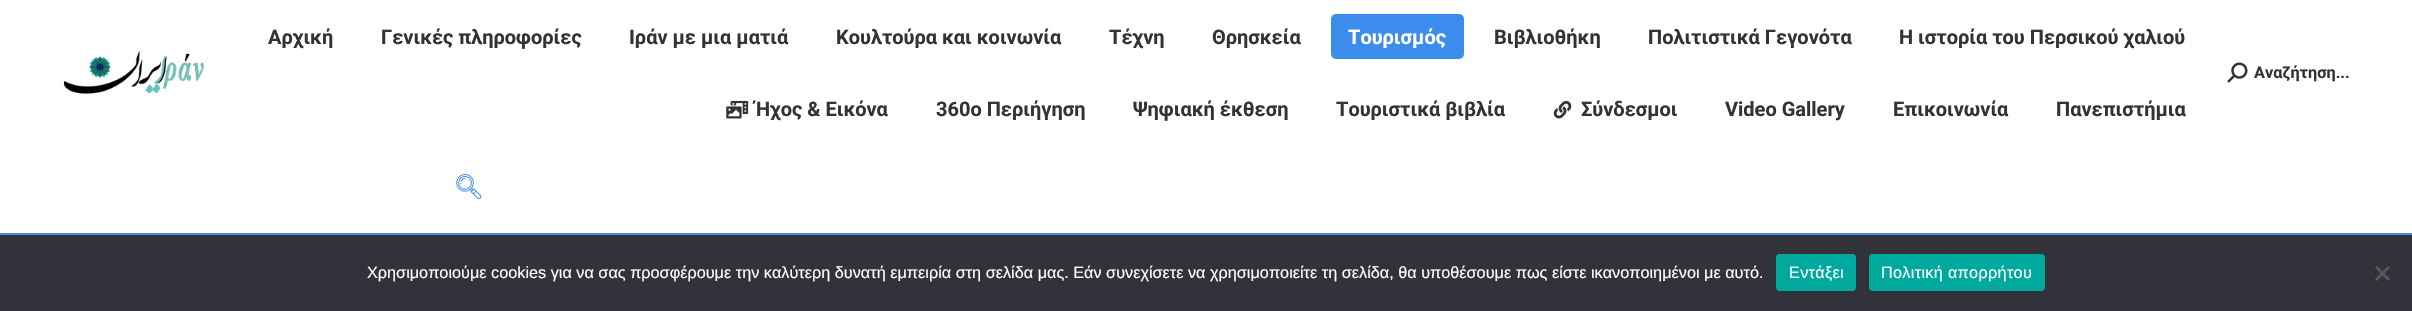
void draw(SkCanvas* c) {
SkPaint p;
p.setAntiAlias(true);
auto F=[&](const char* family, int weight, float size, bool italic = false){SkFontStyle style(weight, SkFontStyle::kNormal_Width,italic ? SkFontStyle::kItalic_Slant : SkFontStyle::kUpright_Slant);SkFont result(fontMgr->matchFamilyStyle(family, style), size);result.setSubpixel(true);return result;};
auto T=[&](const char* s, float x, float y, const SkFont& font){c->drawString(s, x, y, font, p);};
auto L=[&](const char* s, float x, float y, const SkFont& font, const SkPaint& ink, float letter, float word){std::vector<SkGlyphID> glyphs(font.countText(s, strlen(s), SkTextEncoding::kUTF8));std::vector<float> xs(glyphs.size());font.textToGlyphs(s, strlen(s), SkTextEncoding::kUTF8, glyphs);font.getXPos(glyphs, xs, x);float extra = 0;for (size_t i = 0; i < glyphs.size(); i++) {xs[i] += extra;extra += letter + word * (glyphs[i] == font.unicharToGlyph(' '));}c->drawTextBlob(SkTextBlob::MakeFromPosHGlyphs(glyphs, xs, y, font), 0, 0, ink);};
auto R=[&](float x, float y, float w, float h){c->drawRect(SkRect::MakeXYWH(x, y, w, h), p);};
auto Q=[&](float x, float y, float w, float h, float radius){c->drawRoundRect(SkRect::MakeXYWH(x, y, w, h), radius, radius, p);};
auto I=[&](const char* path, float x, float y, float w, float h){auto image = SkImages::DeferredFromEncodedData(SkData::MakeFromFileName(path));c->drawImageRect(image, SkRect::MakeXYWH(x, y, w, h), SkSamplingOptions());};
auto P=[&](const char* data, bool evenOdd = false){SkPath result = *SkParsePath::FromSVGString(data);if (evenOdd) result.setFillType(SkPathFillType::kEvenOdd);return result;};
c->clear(0xffffffff);
I("1.png",63,51,141,43);
auto f1 = F("Roboto",700,20);
p.setColor(0xff333333);
T("Αρχική",268,44,f1);
T("Γενικές πληροφορίες",381,44,f1);
T("Ιράν με μια ματιά",629,44,f1);
T("Κουλτούρα και κοινωνία",836,44,f1);
T("Τέχνη",1109,44,f1);
T("Θρησκεία",1212,44,f1);
p.setColor(0xff3b8ced);
Q(1331,14,133,45,5);
p.setColor(0xffffffff);
T("Τουρισμός",1348,44,f1);
p.setColor(0xff333333);
T("Βιβλιοθήκη",1494,44,f1);
T("Πολιτιστικά Γεγονότα",1648,44,f1);
T("Η ιστορία του Περσικού χαλιού",1899,44,f1);
I("2.png",726,100,23,19);
T("Ήχος & Εικόνα",755,116,f1);
T("360ο Περιήγηση",936,116,f1);
T("Ψηφιακή έκθεση",1133,116,f1);
T("Τουριστικά βιβλία",1336,116,f1);
I("3.png",1553,100,19,19);
T("Σύνδεσμοι",1581,116,f1);
T("Video Gallery",1725,116,f1);
T("Επικοινωνία",1893,116,f1);
T("Πανεπιστήμια",2056,116,f1);
I("4.png",2227,62,21,21);
auto f2 = F("Roboto",700,16.25);
T("Αναζήτηση...",2254,78,f2);
I("5.png",456,174,26,25);
p.setColor(0xff3b8ced);
R(0,233,2412,2);
p.setColor(0xff32323a);
R(0,235,2412,76);
auto f3 = F("Liberation Sans",400,16.25);
p.setColor(0xffffffff);
T("Χρησιμοποιούμε cookies για να σας προσφέρουμε την καλύτερη δυνατή εμπειρία στη σελίδα μας. Εάν συνεχίσετε να χρησιμοποιείτε τη σελίδα, θα υποθέσουμε πως είστε ικανοποιημένοι με αυτό.",367,278,f3);
p.setColor(0xff00a99d);
Q(1776,254,80,37,4);
p.setColor(0xffffffff);
L("Εντάξει",1789,278,f3,p,.3,0);
p.setColor(0xff00a99d);
Q(1869,254,176,37,4);
p.setColor(0xffffffff);
L("Πολιτική απορρήτου",1881,278,f3,p,.3,0);
p.setColor(0xff59595d);
c->drawPath(P("M2388 266l2 1.5l-13 13.5l-2-2z"),p);
c->drawPath(P("M2375 267.5l2-1.5l13 13l-2 2z"),p);
}
